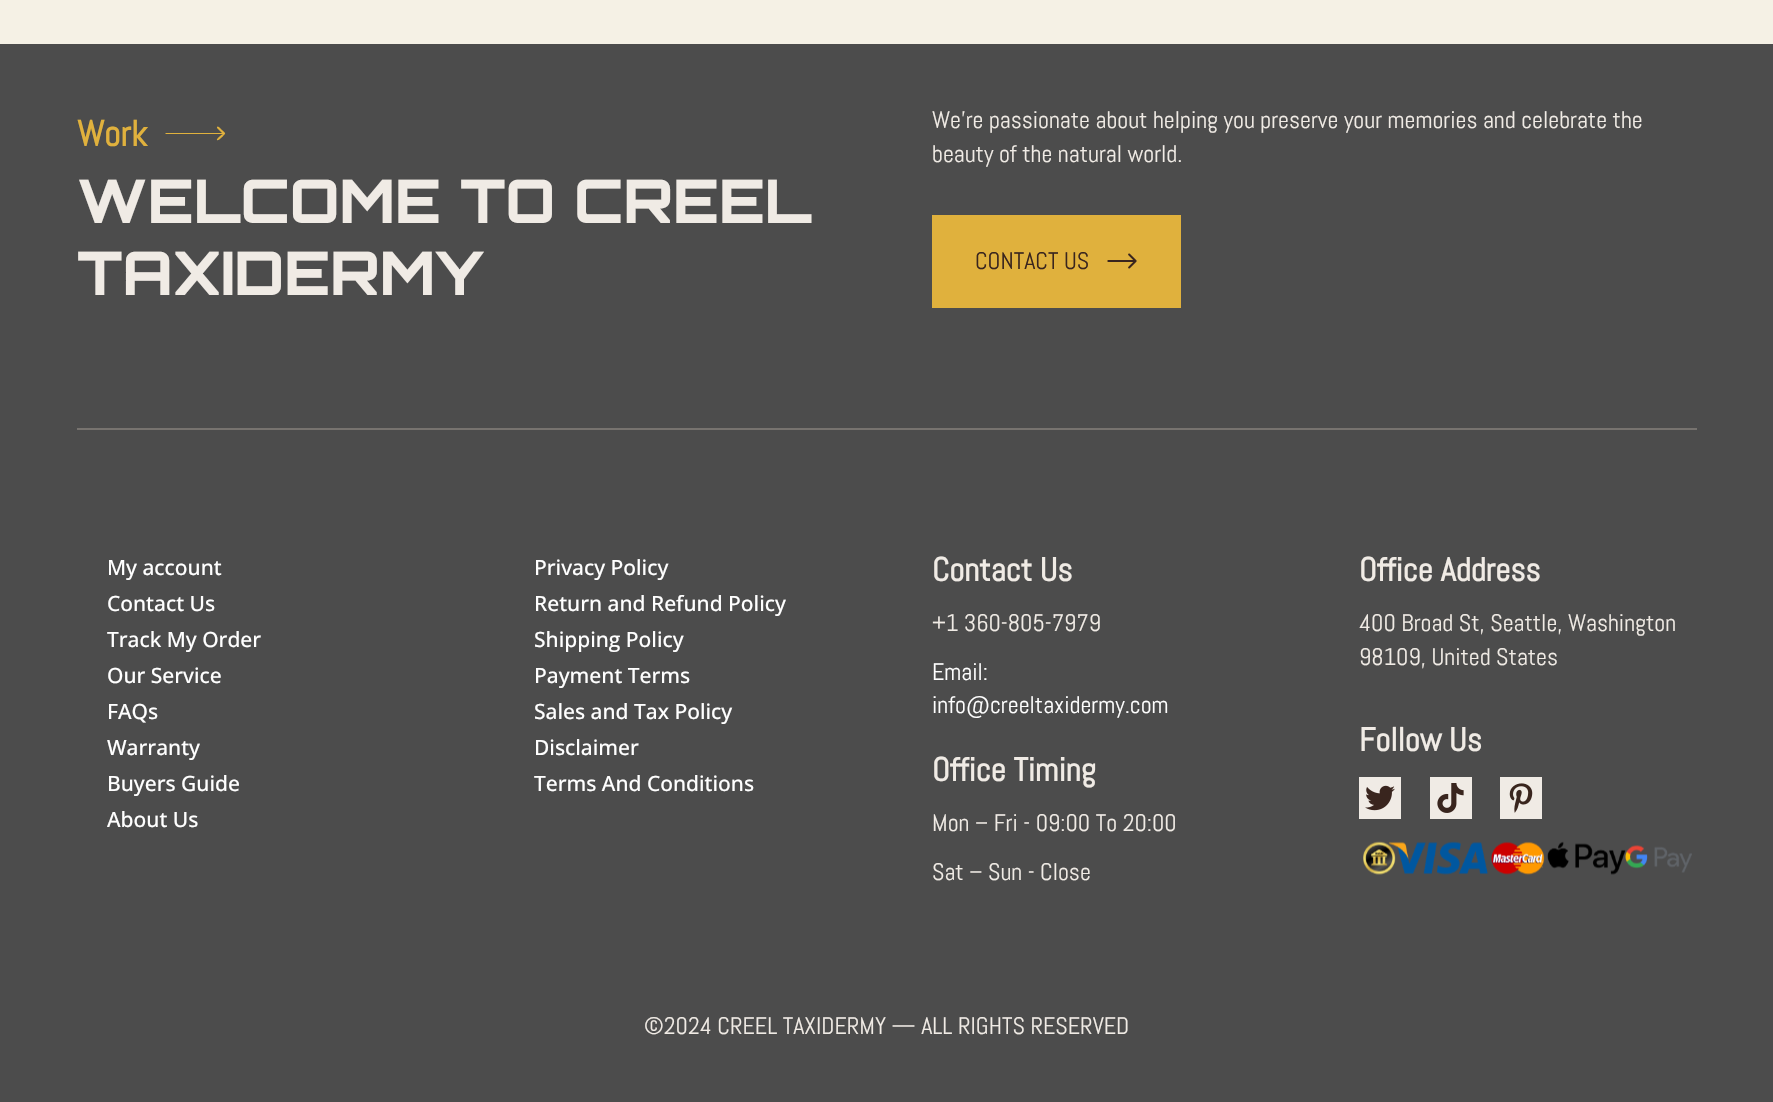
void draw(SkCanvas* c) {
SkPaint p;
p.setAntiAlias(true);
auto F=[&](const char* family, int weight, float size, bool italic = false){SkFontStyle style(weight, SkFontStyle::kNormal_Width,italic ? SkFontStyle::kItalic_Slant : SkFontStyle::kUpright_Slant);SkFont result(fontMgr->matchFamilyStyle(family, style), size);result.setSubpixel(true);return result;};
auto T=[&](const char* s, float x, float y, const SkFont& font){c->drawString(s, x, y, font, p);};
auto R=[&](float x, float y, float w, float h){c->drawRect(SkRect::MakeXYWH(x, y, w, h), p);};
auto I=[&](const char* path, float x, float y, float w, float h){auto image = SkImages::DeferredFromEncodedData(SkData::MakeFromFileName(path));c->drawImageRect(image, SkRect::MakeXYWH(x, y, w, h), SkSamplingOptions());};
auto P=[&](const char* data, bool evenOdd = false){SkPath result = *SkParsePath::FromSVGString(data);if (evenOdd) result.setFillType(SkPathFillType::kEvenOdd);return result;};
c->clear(0xfff5f1e5);
p.setColor(0xff4c4c4c);
R(0,44,1773,1058);
auto f1 = F("Abel",700,36);
p.setColor(0xffe0b13d);
T("Work",77,146,f1);
c->drawPath(P("M166 133c-1 0-1 1 0 1zm59 1c1-1-3-4-3-4c-1-1-4-5-5-3v1l6 6c-1 0-7 5-6 6c1 2 7-5 8-6zm-59 0h58v-1h-58z"),p);
auto f2 = F("Orbitron",800,60);
p.setColor(0xfff0ebe5);
T("WELCOME TO CREEL",77,223,f2);
T("TAXIDERMY",77,295,f2);
auto f3 = F("Abel",400,24);
T("We're passionate about helping you preserve your memories and celebrate the",932,128,f3);
T("beauty of the natural world.",932,162,f3);
p.setColor(0xffe0b13d);
R(932,215,249,93);
p.setColor(0xff39251e);
T("CONTACT US",975,269,f3);
I("1.png",1107,253,30,16);
p.setColor(0xff77736f);
R(77,428,1620,2);
auto f4 = F("Open Sans",500,21);
p.setColor(0xffffffff);
T("My account",107,575,f4);
T("Contact Us",107,611,f4);
T("Track My Order",107,647,f4);
T("Our Service",107,683,f4);
T("FAQs",107,719,f4);
T("Warranty",107,755,f4);
T("Buyers Guide",107,791,f4);
T("About Us",107,827,f4);
T("Privacy Policy",534,575,f4);
T("Return and Refund Policy",534,611,f4);
T("Shipping Policy",534,647,f4);
T("Payment Terms",534,683,f4);
T("Sales and Tax Policy",534,719,f4);
T("Disclaimer",534,755,f4);
T("Terms And Conditions",534,791,f4);
auto f5 = F("Abel",700,33);
p.setColor(0xfff0ebe5);
T("Contact Us",932,581,f5);
T("+1 360-805-7979",932,631,f3);
p.setColor(0xffffffff);
T("Email:",932,680,f3);
T("info@creeltaxidermy.com",932,713,f3);
p.setColor(0xfff0ebe5);
T("Office Timing",932,781,f5);
T("Mon – Fri - 09:00 To 20:00",932,831,f3);
T("Sat – Sun - Close",932,880,f3);
T("Office Address",1359,581,f5);
T("400 Broad St, Seattle, Washington",1359,631,f3);
T("98109, United States",1359,665,f3);
T("Follow Us",1359,751,f5);
R(1359,777,42,42);
I("2.png",1365,785,30,26);
R(1430,777,42,42);
I("3.png",1437,783,27,30);
R(1500,777,42,42);
I("4.png",1509,783,24,30);
I("5.png",1363,841,329,34);
T("©2024 CREEL TAXIDERMY — ALL RIGHTS RESERVED",644,1034,f3);
}
